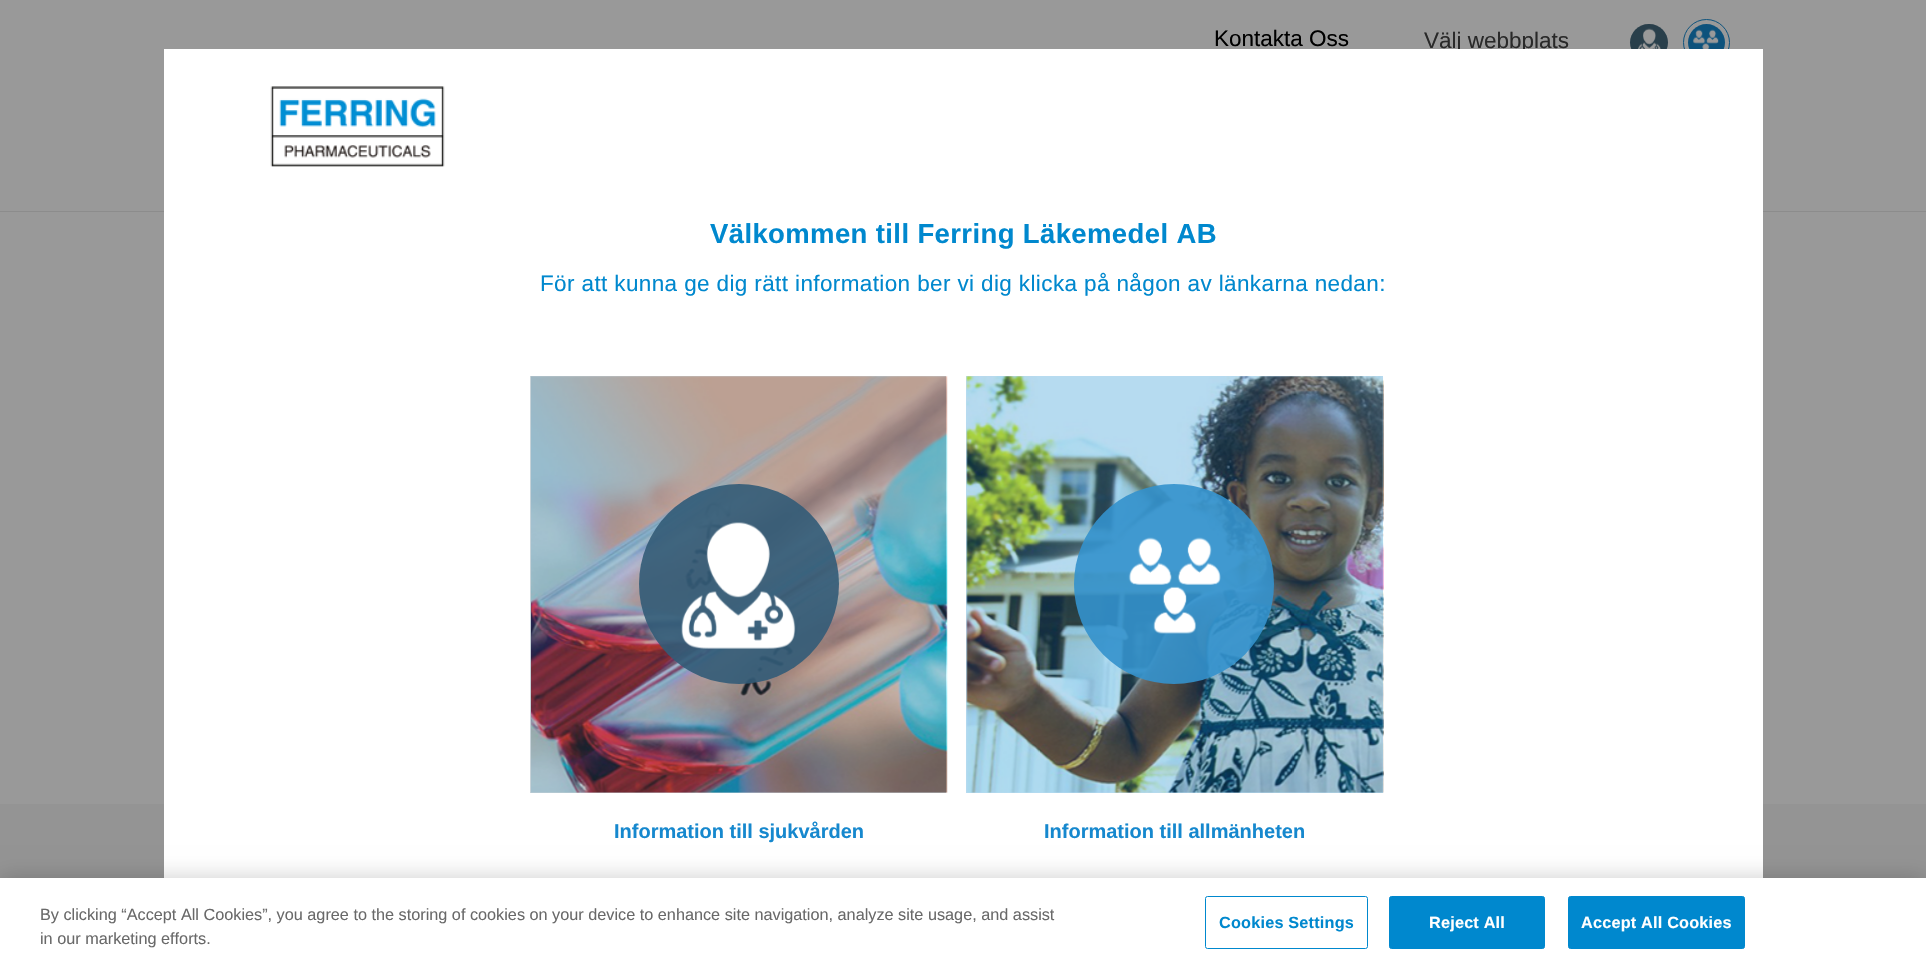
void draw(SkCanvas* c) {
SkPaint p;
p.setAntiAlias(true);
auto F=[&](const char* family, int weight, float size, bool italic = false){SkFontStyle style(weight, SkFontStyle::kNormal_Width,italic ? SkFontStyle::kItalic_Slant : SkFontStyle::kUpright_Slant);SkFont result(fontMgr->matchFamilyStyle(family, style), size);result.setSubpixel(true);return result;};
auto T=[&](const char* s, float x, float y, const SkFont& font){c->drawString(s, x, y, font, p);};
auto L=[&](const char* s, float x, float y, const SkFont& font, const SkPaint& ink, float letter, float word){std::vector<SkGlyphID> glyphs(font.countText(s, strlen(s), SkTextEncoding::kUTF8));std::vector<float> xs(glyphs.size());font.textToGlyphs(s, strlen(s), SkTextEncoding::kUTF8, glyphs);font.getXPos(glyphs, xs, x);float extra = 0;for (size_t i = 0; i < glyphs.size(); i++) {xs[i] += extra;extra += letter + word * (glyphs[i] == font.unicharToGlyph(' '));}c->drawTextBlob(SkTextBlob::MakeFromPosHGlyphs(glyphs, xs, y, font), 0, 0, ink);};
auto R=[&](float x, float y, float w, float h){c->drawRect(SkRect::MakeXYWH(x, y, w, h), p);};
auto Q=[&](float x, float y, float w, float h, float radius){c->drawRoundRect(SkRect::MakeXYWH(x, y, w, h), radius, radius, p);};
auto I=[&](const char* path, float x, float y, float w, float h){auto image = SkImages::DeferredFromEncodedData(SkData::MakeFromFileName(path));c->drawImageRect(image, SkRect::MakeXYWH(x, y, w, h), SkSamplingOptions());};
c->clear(0xff999999);
auto f1 = F("Liberation Sans",400,22.5);
p.setColor(0xff000000);
T("Kontakta Oss",1214,46,f1);
p.setColor(0xff292929);
T("Välj webbplats",1424,48,f1);
p.setColor(0xff293f4b);
Q(1630,24,38,37,18.5);
I("1.png",1637,28,24,21);
p.setStroke(true);
p.setStrokeWidth(1);
p.setColor(0xff0d527c);
c->drawCircle(1706.5,42.5,23,p);
p.setStroke(false);
c->drawCircle(1706.5,42.5,18.5,p);
I("2.png",1693,29,26,20);
p.setColor(0xff8c8c8c);
R(0,211,1926,1);
p.setColor(0xff949494);
R(0,804,1926,74);
p.setColor(0xffffffff);
R(164,49,1599,829);
I("3.png",270,86,175,81);
auto f2 = F("Liberation Sans",700,27.5);
p.setColor(0xff0088ce);
L("Välkommen till Ferring Läkemedel AB",710,243,f2,p,.38,0);
L("För att kunna ge dig rätt information ber vi dig klicka på någon av länkarna nedan:",540,291,f1,p,.38,0);
I("4.png",531,376,417,417);
p.setColor(0x4d44697d);
R(530,376,416,417);
p.setColor(0xe6325b77);
c->drawCircle(739,584,100,p);
I("5.png",681,522,115,127);
auto f3 = F("Liberation Sans",700,20);
p.setColor(0xff1688ce);
T("Information till sjukvården",614,838,f3);
I("6.png",966,376,418,417);
p.setColor(0x4d1688ce);
R(966,376,417,417);
p.setColor(0xe63391cc);
c->drawCircle(1174,584,100,p);
I("7.png",1128,537,93,97);
p.setColor(0xff1688ce);
T("Information till allmänheten",1044,838,f3);
p.setColor(0x33000000);
p.setMaskFilter(SkMaskFilter::MakeBlur(kNormal_SkBlurStyle, 11));
c->drawRect(SkRect::MakeXYWH(0,878,1926,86),p);
p.setMaskFilter(nullptr);
p.setColor(0xffffffff);
R(0,878,1926,85);
auto f4 = F("Liberation Sans",400,16.25);
p.setColor(0xff696969);
T("By clicking “Accept All Cookies”, you agree to the storing of cookies on your device to enhance site navigation, analyze site usage, and assist",40,920,f4);
T("in our marketing efforts.",40,944,f4);
p.setStroke(true);
p.setColor(0xff0088ce);
c->drawRoundRect(SkRect::MakeXYWH(1205.5,896.5,162,52),2,2,p);
auto f5 = F("Liberation Sans",700,16.25);
p.setStroke(false);
L("Cookies Settings",1219,928,f5,p,.2,0);
c->drawRoundRect(SkRect::MakeXYWH(1389.5,896.5,155,52),2,2,p);
p.setStroke(true);
c->drawRoundRect(SkRect::MakeXYWH(1389.5,896.5,155,52),2,2,p);
p.setStroke(false);
p.setColor(0xffffffff);
L("Reject All",1429,928,f5,p,.2,0);
p.setColor(0xff0088ce);
c->drawRoundRect(SkRect::MakeXYWH(1568.5,896.5,176,52),2,2,p);
p.setStroke(true);
c->drawRoundRect(SkRect::MakeXYWH(1568.5,896.5,176,52),2,2,p);
p.setStroke(false);
p.setColor(0xffffffff);
L("Accept All Cookies",1581,928,f5,p,.2,0);
}
